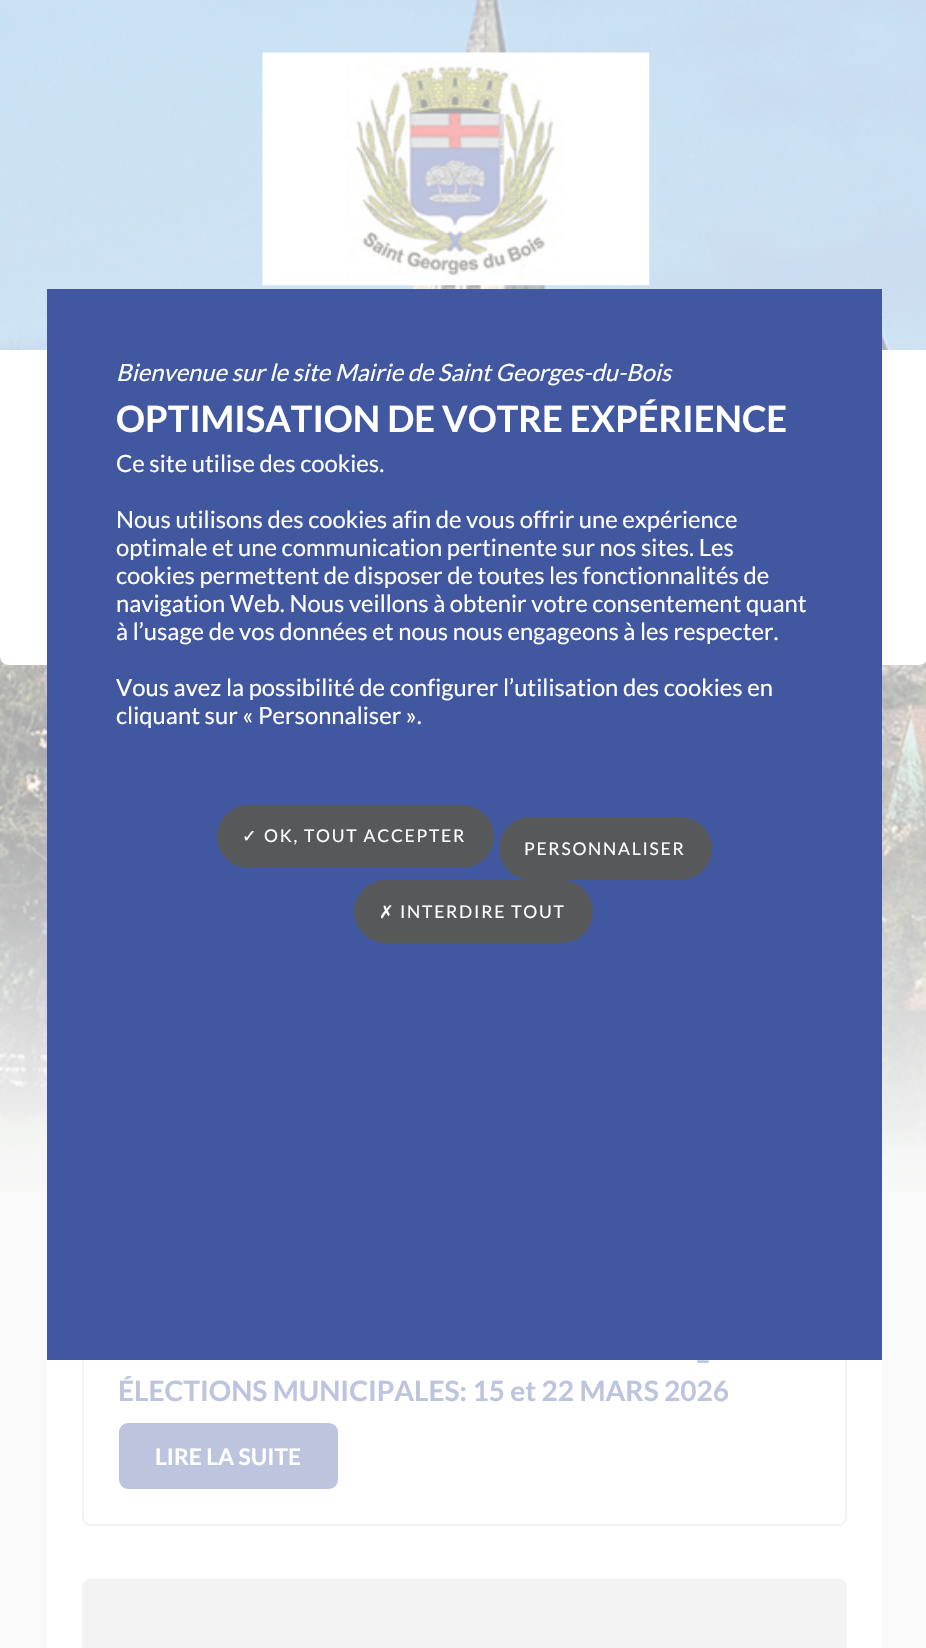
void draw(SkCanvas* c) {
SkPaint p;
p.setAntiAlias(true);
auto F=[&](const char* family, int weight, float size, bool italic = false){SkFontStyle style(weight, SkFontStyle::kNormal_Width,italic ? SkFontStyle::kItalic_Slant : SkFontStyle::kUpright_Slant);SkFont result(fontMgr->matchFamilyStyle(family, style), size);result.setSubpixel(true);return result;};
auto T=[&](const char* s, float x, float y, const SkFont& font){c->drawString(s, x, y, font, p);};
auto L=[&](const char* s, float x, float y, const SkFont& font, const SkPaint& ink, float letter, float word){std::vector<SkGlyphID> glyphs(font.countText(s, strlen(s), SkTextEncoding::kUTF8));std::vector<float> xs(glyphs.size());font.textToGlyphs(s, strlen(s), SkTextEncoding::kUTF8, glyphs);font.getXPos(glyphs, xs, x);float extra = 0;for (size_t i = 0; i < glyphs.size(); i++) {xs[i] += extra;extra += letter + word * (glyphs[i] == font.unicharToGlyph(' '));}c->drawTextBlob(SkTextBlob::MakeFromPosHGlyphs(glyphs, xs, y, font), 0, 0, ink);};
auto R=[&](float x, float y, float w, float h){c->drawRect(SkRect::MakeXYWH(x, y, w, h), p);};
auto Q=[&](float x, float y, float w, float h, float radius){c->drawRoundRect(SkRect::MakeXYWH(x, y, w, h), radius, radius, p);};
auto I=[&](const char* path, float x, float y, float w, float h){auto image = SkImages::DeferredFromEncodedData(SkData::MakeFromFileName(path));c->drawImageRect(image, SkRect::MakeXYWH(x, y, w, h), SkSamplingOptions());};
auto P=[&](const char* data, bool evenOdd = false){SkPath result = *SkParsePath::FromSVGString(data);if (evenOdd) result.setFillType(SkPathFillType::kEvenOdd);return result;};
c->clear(0xfff9f9f9);
I("1.png",0,0,926,1190);
p.setColor(0xffffffff);
c->drawPath(P("M0 350h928v306c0 5-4 9-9 9h-910c-5 0-9-4-9-9z"),p);
R(47,1360,835,288);
p.setColor(0xfff3f3f3);
c->drawPath(P("M82 1309h765v208c0 5-4 9-9 9h-747c-5 0-9-4-9-9zm2 0h761v208c0 4-3 7-7 7h-747c-4 0-7-3-7-7z",true),p);
p.setColor(0xff4157a0);
R(47,289,835,1071);
auto f1 = F("Lato",400,23.8,true);
p.setColor(0xffffffff);
T("Bienvenue sur le site Mairie de Saint Georges-du-Bois",116,381,f1);
auto f2 = F("Lato",700,36.25);
T("OPTIMISATION DE VOTRE EXPÉRIENCE",116,432,f2);
auto f3 = F("Lato",400,23.8);
T("Ce site utilise des cookies.",116,472,f3);
T("Nous utilisons des cookies afin de vous offrir une expérience",116,528,f3);
T("optimale et une communication pertinente sur nos sites. Les",116,556,f3);
T("cookies permettent de disposer de toutes les fonctionnalités de",116,584,f3);
T("navigation Web. Nous veillons à obtenir votre consentement quant",116,612,f3);
T("à l’usage de vos données et nous nous engageons à les respecter.",116,640,f3);
T("Vous avez la possibilité de configurer l’utilisation des cookies en",116,696,f3);
T("cliquant sur « Personnaliser ».",116,724,f3);
p.setColor(0xff56585a);
Q(217,805,277,63,31.5);
auto f4 = F("DejaVu Sans",400,17.5);
p.setColor(0xffffffff);
L("✓",242,842,f4,p,1.75,0);
auto f5 = F("Lato",400,17.5);
L("OK, TOUT ACCEPTER",264,842,f5,p,1.75,0);
p.setColor(0xff56585a);
Q(499,817,213,63,31.5);
p.setColor(0xffffffff);
L("PERSONNALISER",524,855,f5,p,1.75,0);
p.setColor(0xff56585a);
Q(354,880,239,63,31.5);
p.setColor(0xffffffff);
L("✗",379,918,f4,p,1.75,0);
L("INTERDIRE TOUT",400,918,f5,p,1.75,0);
I("2.png",262,52,388,234);
auto f6 = F("Lato",700,28);
p.setColor(0xffbdc4de);
T("–",695,1370,f6);
T("ÉLECTIONS MUNICIPALES: 15 et 22 MARS 2026",118,1401,f6);
c->drawRoundRect(SkRect::MakeXYWH(120,1424,217,64),8,8,p);
p.setStroke(true);
p.setStrokeWidth(2);
c->drawRoundRect(SkRect::MakeXYWH(120,1424,217,64),8,8,p);
auto f7 = F("Lato",700,22.75);
p.setStroke(false);
p.setColor(0xffffffff);
T("LIRE LA SUITE",155,1465,f7);
I("3.png",82,1578,765,70);
}
